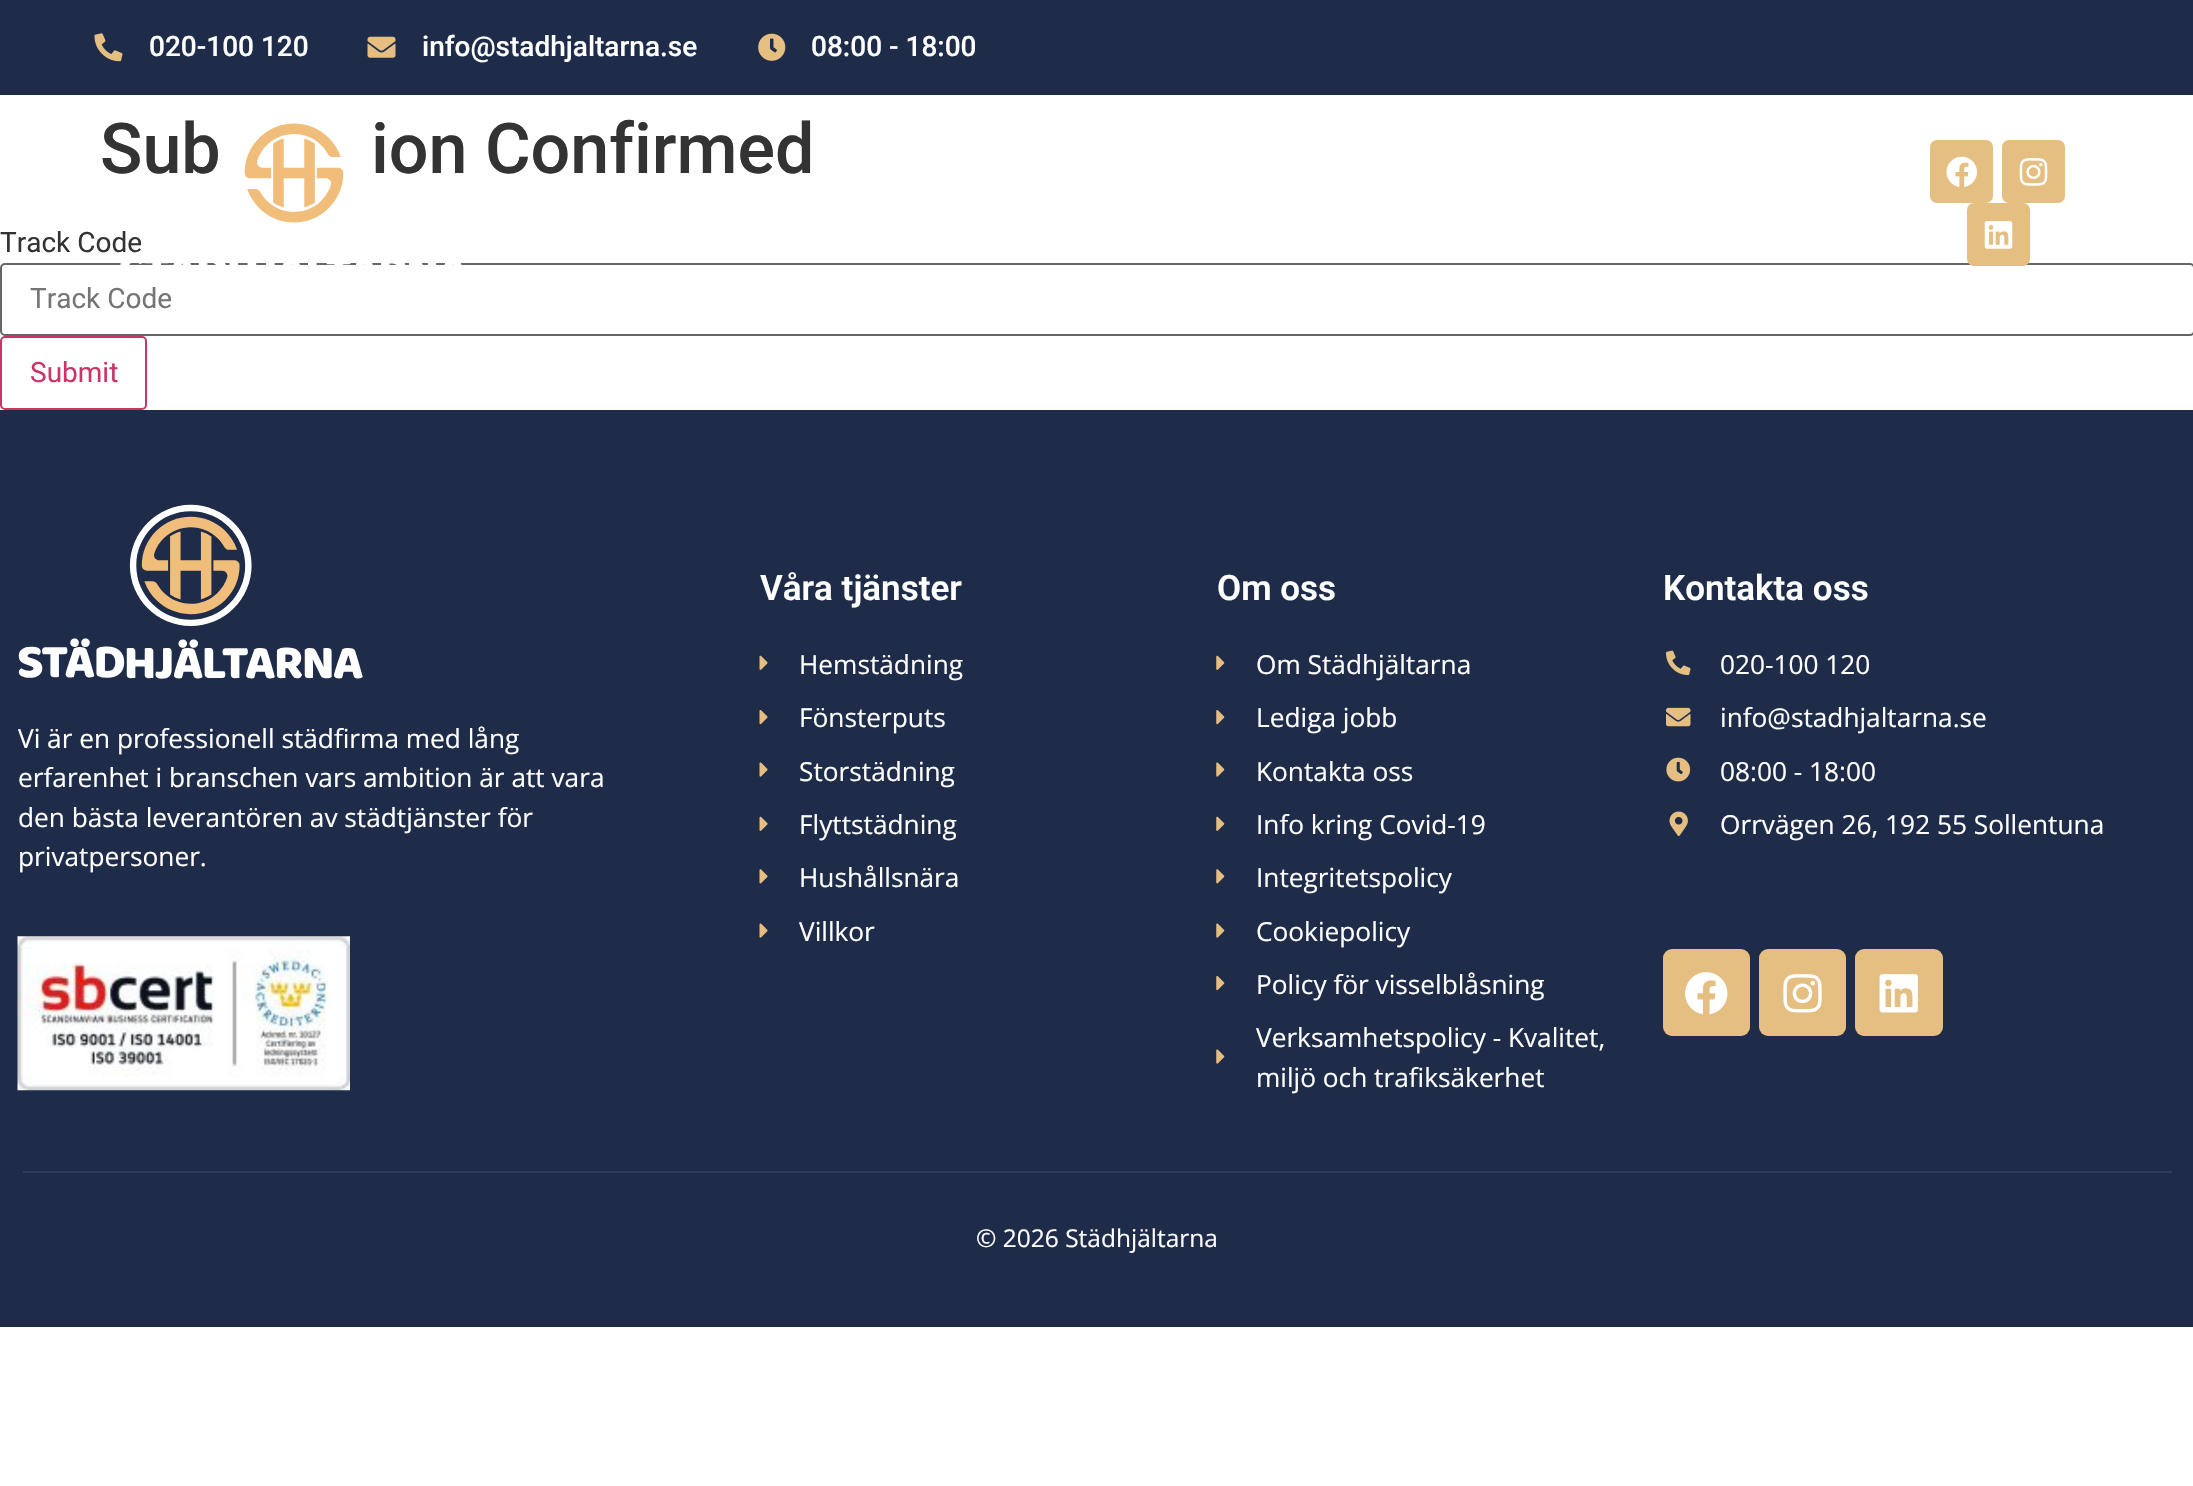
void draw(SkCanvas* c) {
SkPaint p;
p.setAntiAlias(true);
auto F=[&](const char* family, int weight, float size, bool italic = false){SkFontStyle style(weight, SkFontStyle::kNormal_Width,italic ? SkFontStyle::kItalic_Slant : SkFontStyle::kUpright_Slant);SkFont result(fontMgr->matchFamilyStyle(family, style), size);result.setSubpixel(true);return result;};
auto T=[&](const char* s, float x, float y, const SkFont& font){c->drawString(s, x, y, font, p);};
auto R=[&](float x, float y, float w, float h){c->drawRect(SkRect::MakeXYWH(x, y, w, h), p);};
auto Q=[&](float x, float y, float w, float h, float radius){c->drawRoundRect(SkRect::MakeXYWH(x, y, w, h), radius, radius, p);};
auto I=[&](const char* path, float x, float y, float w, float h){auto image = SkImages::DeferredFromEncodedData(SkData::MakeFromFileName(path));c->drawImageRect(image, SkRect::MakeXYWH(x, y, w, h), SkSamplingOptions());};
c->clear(0xffffffff);
p.setColor(0xff1e2c4a);
R(0,0,2193,95);
I("1.png",94,33,29,29);
auto f1 = F("Roboto",500,28);
p.setColor(0xffffffff);
T("020-100 120",149,56,f1);
I("2.png",367,36,29,22);
T("info@stadhjaltarna.se",422,56,f1);
I("3.png",758,33,28,28);
T("08:00 - 18:00",811,56,f1);
auto f2 = F("Roboto",500,70);
p.setColor(0xff333333);
T("Sub",100,173,f2);
T("ion Confirmed",371,173,f2);
auto f3 = F("Roboto",400,28);
T("Track Code",0,252,f3);
p.setStroke(true);
p.setStrokeWidth(2);
p.setColor(0xff666666);
c->drawRoundRect(SkRect::MakeXYWH(1,264,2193,71),4,4,p);
I("4.png",120,123,342,142);
p.setStroke(false);
p.setColor(0xffe5be82);
Q(1930,140,63,63,7);
I("5.png",1946,156,31,31);
Q(2002,140,63,63,7);
I("6.png",2019,158,29,28);
Q(1967,203,63,63,7);
I("7.png",1984,221,29,28);
p.setColor(0xff757575);
T("Track Code",30,308,f3);
p.setStroke(true);
p.setColor(0xffcc3366);
c->drawRoundRect(SkRect::MakeXYWH(1,337,145,72),4,4,p);
p.setStroke(false);
T("Submit",30,382,f3);
p.setColor(0xff1e2c4a);
R(0,410,2193,917);
I("8.png",18,504,345,175);
auto f4 = F("Open Sans",400,26.25);
p.setColor(0xffffffff);
T("Vi är en professionell städfirma med lång",18,748,f4);
T("erfarenhet i branschen vars ambition är att vara",18,787,f4);
T("den bästa leverantören av städtjänster för",18,827,f4);
T("privatpersoner.",18,866,f4);
I("9.png",17,936,333,155);
auto f5 = F("Roboto",600,35);
T("Våra tjänster",760,600,f5);
I("10.png",759,655,9,15);
T("Hemstädning",799,674,f4);
I("11.png",759,710,9,15);
T("Fönsterputs",799,727,f4);
I("12.png",759,762,9,15);
T("Storstädning",799,781,f4);
I("10.png",759,816,9,15);
T("Flyttstädning",799,834,f4);
I("13.png",759,869,9,15);
T("Hushållsnära",799,887,f4);
I("12.png",759,923,9,15);
T("Villkor",799,941,f4);
T("Om oss",1217,600,f5);
I("14.png",1216,655,9,15);
T("Om Städhjältarna",1256,674,f4);
I("15.png",1216,710,9,15);
T("Lediga jobb",1256,727,f4);
I("16.png",1216,762,9,15);
T("Kontakta oss",1256,781,f4);
I("14.png",1216,816,9,15);
T("Info kring Covid-19",1256,834,f4);
I("17.png",1216,869,9,15);
T("Integritetspolicy",1256,887,f4);
I("16.png",1216,923,9,15);
T("Cookiepolicy",1256,941,f4);
I("15.png",1216,976,9,15);
T("Policy för visselblåsning",1256,994,f4);
I("16.png",1216,1049,9,15);
T("Verksamhetspolicy - Kvalitet,",1256,1047,f4);
T("miljö och trafiksäkerhet",1256,1087,f4);
T("Kontakta oss",1663,600,f5);
I("18.png",1666,650,25,26);
T("020-100 120",1720,674,f4);
I("19.png",1666,707,25,20);
T("info@stadhjaltarna.se",1720,727,f4);
I("20.png",1666,757,25,25);
T("08:00 - 18:00",1720,781,f4);
I("21.png",1669,811,19,25);
T("Orrvägen 26, 192 55 Sollentuna",1720,834,f4);
p.setColor(0xffe5be82);
Q(1663,949,87,87,9);
I("22.png",1685,972,43,43);
Q(1759,949,87,87,9);
I("23.png",1783,974,39,39);
Q(1855,949,88,87,9);
I("24.png",1879,974,39,39);
p.setColor(0xff303d58);
R(23,1171,2149,2);
auto f6 = F("Open Sans",400,24.5);
p.setColor(0xffffffff);
T("© 2026 Städhjältarna",976,1247,f6);
}
